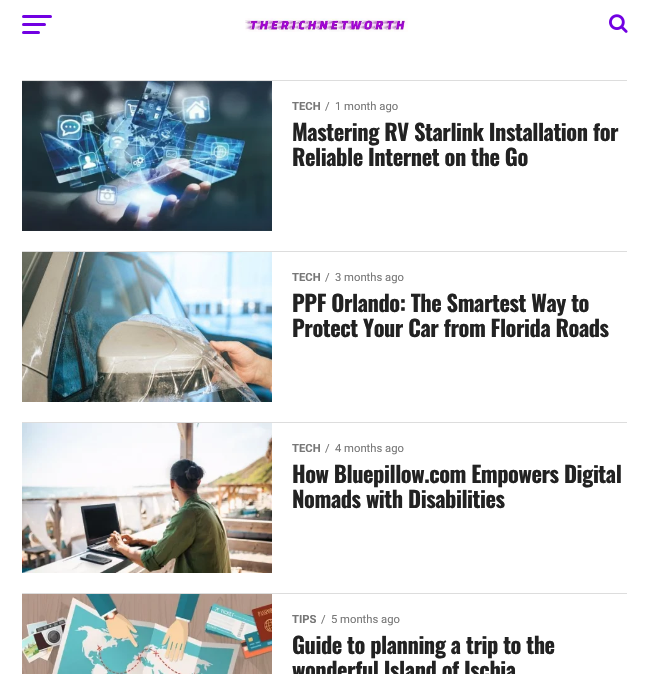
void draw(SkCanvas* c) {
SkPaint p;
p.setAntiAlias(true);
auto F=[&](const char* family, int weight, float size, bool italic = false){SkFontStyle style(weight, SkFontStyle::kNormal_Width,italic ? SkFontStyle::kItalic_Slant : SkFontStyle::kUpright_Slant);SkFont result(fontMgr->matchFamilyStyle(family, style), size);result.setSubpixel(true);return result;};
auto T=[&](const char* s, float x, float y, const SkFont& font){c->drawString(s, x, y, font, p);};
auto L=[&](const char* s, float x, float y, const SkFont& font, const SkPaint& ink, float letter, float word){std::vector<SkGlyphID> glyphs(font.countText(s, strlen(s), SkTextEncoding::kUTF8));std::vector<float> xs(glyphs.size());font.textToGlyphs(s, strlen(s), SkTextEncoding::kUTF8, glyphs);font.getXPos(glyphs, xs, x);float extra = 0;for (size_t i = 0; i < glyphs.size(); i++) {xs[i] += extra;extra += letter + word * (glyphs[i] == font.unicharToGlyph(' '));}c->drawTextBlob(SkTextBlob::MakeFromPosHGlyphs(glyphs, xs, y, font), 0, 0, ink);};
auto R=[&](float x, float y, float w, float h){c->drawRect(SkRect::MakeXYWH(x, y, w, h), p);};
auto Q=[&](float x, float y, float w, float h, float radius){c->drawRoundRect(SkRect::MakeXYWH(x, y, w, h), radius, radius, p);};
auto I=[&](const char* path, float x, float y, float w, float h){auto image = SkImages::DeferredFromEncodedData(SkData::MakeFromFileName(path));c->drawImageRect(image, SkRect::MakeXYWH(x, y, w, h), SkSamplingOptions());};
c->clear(0xffffffff);
p.setColor(0xff7100e2);
Q(22,15,30,3,1.5);
Q(22,23,24,3,1.5);
Q(22,31,18,3,1.5);
I("1.png",245,18,163,14);
I("2.png",609,14,19,19);
p.setColor(0xffdddddd);
R(22,80,605,1);
I("3.png",22,81,250,150);
auto f1 = F("Roboto",700,11.25);
p.setColor(0xff777777);
T("TECH",292,110,f1);
auto f2 = F("Roboto",400,11.25);
T("/",325,110,f2);
T("1 month ago",335,110,f2);
auto f3 = F("Oswald",700,22.4);
p.setColor(0xff222222);
L("Mastering RV Starlink Installation for",292,141,f3,p,-.45,0);
L("Reliable Internet on the Go",292,166,f3,p,-.45,0);
p.setColor(0xffdddddd);
R(22,251,605,1);
I("4.png",22,252,250,150);
p.setColor(0xff777777);
T("TECH",292,281,f1);
T("/",325,281,f2);
T("3 months ago",335,281,f2);
p.setColor(0xff222222);
L("PPF Orlando: The Smartest Way to",292,312,f3,p,-.45,0);
L("Protect Your Car from Florida Roads",292,337,f3,p,-.45,0);
p.setColor(0xffdddddd);
R(22,422,605,1);
I("5.png",22,423,250,150);
p.setColor(0xff777777);
T("TECH",292,452,f1);
T("/",325,452,f2);
T("4 months ago",335,452,f2);
p.setColor(0xff222222);
L("How Bluepillow.com Empowers Digital",292,483,f3,p,-.45,0);
L("Nomads with Disabilities",292,508,f3,p,-.45,0);
p.setColor(0xffdddddd);
R(22,593,605,1);
I("6.png",22,594,250,80);
p.setColor(0xff777777);
T("TIPS",292,623,f1);
T("/",321,623,f2);
T("5 months ago",331,623,f2);
p.setColor(0xff222222);
L("Guide to planning a trip to the",292,654,f3,p,-.45,0);
L("wonderful Island of Ischia",292,679,f3,p,-.45,0);
}
